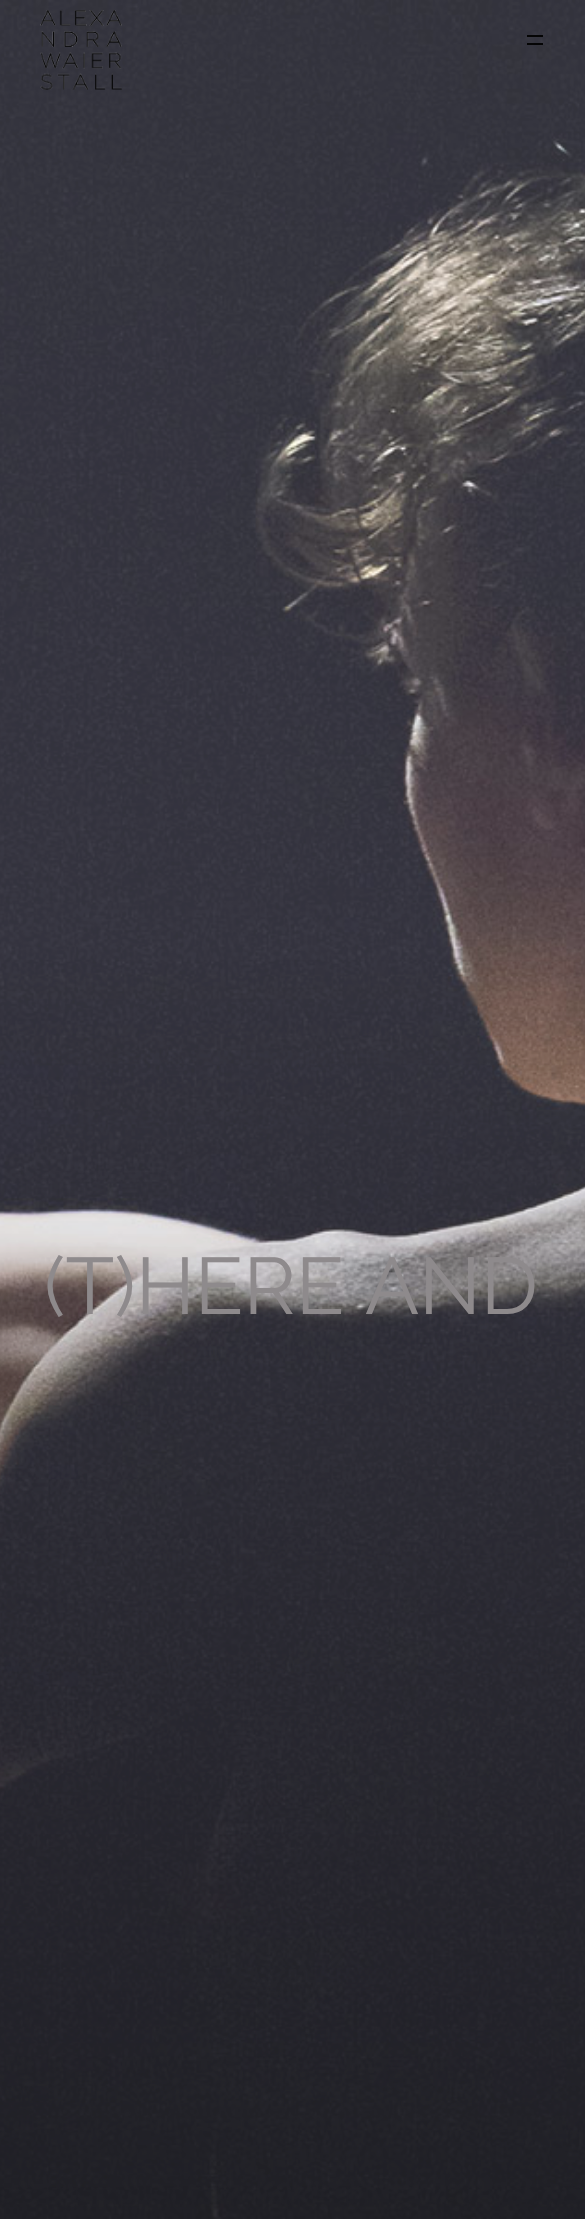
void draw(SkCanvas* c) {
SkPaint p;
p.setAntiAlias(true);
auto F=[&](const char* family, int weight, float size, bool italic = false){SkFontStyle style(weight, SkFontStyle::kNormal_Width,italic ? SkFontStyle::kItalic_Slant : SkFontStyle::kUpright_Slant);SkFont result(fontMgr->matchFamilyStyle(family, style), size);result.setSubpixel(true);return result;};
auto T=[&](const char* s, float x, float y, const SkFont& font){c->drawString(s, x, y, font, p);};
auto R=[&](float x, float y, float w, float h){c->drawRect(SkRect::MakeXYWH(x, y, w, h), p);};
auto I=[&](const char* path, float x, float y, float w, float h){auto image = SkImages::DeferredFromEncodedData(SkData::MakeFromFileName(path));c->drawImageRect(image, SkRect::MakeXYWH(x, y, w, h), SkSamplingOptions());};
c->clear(0xffffffff);
I("2.png",0,0,585,2219);
I("1.png",40,10,82,80);
p.setColor(0xeb000000);
R(527,35,16,2);
R(527,43,16,2);
{
const SkColor colors[] = {0x00000000,0x66000000};
const float stops[] = {0,1};
const SkPoint ends[] = {{292,888}, {293,2219}};
p.setShader(SkGradientShader::MakeLinear(ends, colors, stops, 2, SkTileMode::kClamp));
p.setAlpha(255);
}
R(0,960,585,1259);
auto f1 = F("Raleway",400,80);
p.setShader(nullptr);
p.setColor(0xff8e8a8c);
T("(T)HERE AND",44,1314,f1);
}
